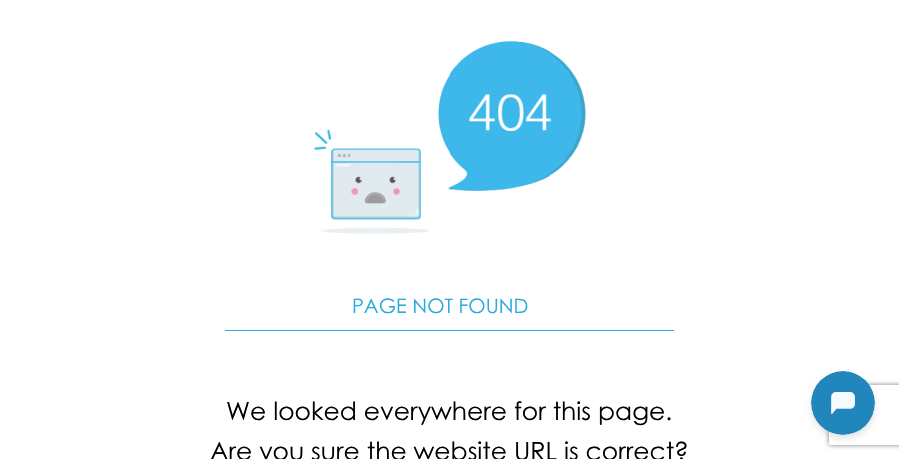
void draw(SkCanvas* c) {
SkPaint p;
p.setAntiAlias(true);
auto F=[&](const char* family, int weight, float size, bool italic = false){SkFontStyle style(weight, SkFontStyle::kNormal_Width,italic ? SkFontStyle::kItalic_Slant : SkFontStyle::kUpright_Slant);SkFont result(fontMgr->matchFamilyStyle(family, style), size);result.setSubpixel(true);return result;};
auto T=[&](const char* s, float x, float y, const SkFont& font){c->drawString(s, x, y, font, p);};
auto R=[&](float x, float y, float w, float h){c->drawRect(SkRect::MakeXYWH(x, y, w, h), p);};
auto I=[&](const char* path, float x, float y, float w, float h){auto image = SkImages::DeferredFromEncodedData(SkData::MakeFromFileName(path));c->drawImageRect(image, SkRect::MakeXYWH(x, y, w, h), SkSamplingOptions());};
auto P=[&](const char* data, bool evenOdd = false){SkPath result = *SkParsePath::FromSVGString(data);if (evenOdd) result.setFillType(SkPathFillType::kEvenOdd);return result;};
c->clear(0xffffffff);
I("1.png",314,41,272,193);
auto f1 = F("Century Gothic",400,20);
p.setColor(0xff28aae1);
T("PAGE NOT FOUND",352,313,f1);
R(225,330,449,1);
auto f2 = F("Century Gothic",400,25);
p.setColor(0xff000000);
T("We looked everywhere for this page.",226,420,f2);
T("Are you sure the website URL is correct?",210,460,f2);
p.setColor(0x1a000000);
p.setMaskFilter(SkMaskFilter::MakeBlur(kNormal_SkBlurStyle, 3));
c->drawRoundRect(SkRect::MakeXYWH(811,375,64,64),32,32,p);
p.setMaskFilter(nullptr);
c->save();
c->clipPath(P("M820 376h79v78h-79zm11 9h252c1 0 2 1 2 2v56c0 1-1 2-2 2h-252c-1 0-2-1-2-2v-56c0-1 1-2 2-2z",true),true);
p.setColor(0xff808080);
p.setMaskFilter(SkMaskFilter::MakeBlur(kNormal_SkBlurStyle, 2.5));
c->drawRoundRect(SkRect::MakeXYWH(829,385,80,60),2,2,p);
p.setMaskFilter(nullptr);
c->restore();
I("2.png",811,371,64,64);
}
